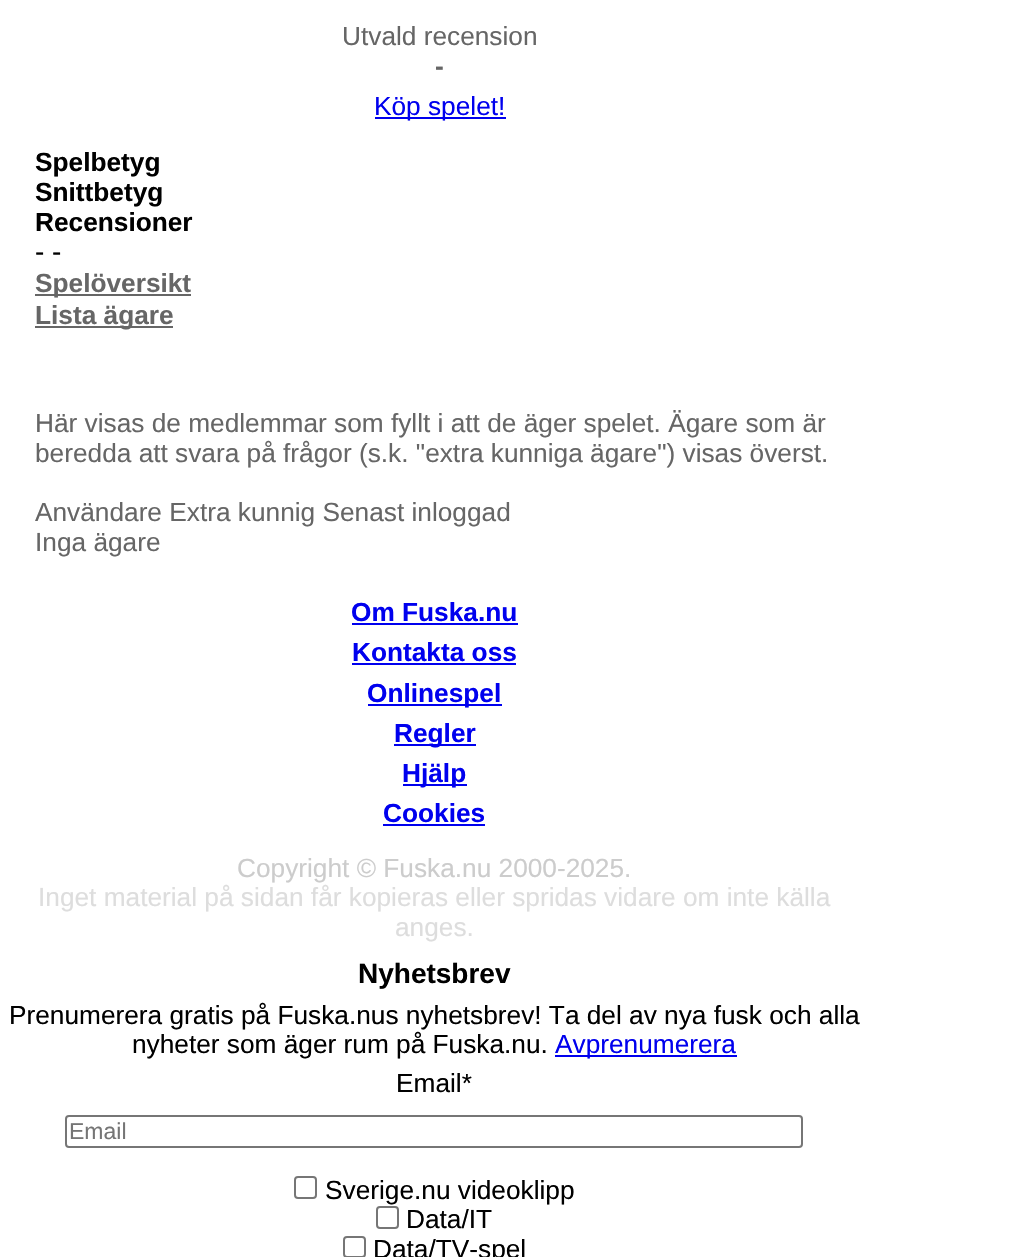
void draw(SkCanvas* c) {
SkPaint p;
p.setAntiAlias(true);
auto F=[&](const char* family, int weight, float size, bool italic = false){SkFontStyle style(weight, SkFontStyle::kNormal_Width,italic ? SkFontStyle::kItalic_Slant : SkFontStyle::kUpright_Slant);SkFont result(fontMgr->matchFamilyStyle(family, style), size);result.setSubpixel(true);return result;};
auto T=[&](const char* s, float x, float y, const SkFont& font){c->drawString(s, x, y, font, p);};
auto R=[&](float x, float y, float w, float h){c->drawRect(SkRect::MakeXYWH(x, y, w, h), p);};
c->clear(0xffffffff);
auto f1 = F("Liberation Sans",400,26.25);
p.setColor(0xff666666);
T("Utvald recension",342,45,f1);
auto f2 = F("Liberation Sans",700,26.25);
T("-",435,75,f2);
p.setColor(0xff0000ee);
R(375,117,131,2);
T("Köp spelet!",374,115,f1);
p.setColor(0xff000000);
T("Spelbetyg",35,171,f2);
T("Snittbetyg",35,201,f2);
T("Recensioner",35,231,f2);
auto f3 = F("Liberation Sans",400,28);
T("- -",35,261,f3);
p.setColor(0xff666666);
R(35,294,156,2);
T("Spelöversikt",35,292,f2);
R(35,326,138,2);
T("Lista ägare",35,324,f2);
T("Här visas de medlemmar som fyllt i att de äger spelet. Ägare som är",35,432,f1);
T("beredda att svara på frågor (s.k. \"extra kunniga ägare\") visas överst.",35,462,f1);
T("Användare Extra kunnig Senast inloggad",35,521,f1);
T("Inga ägare",35,551,f1);
p.setColor(0xff0000ee);
T("Om Fuska.nu",351,621,f2);
R(352,623,166,2);
T("Kontakta oss",352,661,f2);
R(352,663,164,2);
R(368,704,134,2);
T("Onlinespel",367,702,f2);
R(394,744,82,2);
T("Regler",394,742,f2);
R(403,784,64,2);
T("Hjälp",402,782,f2);
T("Cookies",383,822,f2);
R(383,824,102,2);
p.setColor(0xffcccccc);
T("Copyright © Fuska.nu 2000-2025.",237,877,f1);
p.setColor(0xffdddddd);
T("Inget material på sidan får kopieras eller spridas vidare om inte källa",38,906,f1);
T("anges.",395,936,f1);
auto f4 = F("Liberation Sans",700,28);
p.setColor(0xff000000);
T("Nyhetsbrev",358,983,f4);
T("Prenumerera gratis på Fuska.nus nyhetsbrev! Ta del av nya fusk och alla",9,1024,f1);
T("nyheter som äger rum på Fuska.nu.",132,1053,f1);
p.setColor(0xff0000ee);
R(555,1055,182,2);
T("Avprenumerera",555,1053,f1);
p.setColor(0xff000000);
T("Email*",396,1092,f1);
p.setStroke(true);
p.setStrokeWidth(2);
p.setColor(0xff767676);
c->drawRoundRect(SkRect::MakeXYWH(66,1116,736,31),3,3,p);
auto f5 = F("Liberation Sans",400,23);
p.setStroke(false);
p.setColor(0xff757575);
T("Email",69,1139,f5);
p.setStroke(true);
p.setColor(0xff767676);
c->drawRoundRect(SkRect::MakeXYWH(295,1177,21,21),3,3,p);
p.setStroke(false);
p.setColor(0xff000000);
T("Sverige.nu videoklipp",325,1199,f1);
p.setStroke(true);
p.setColor(0xff767676);
c->drawRoundRect(SkRect::MakeXYWH(377,1207,21,21),3,3,p);
p.setStroke(false);
p.setColor(0xff000000);
T("Data/IT",406,1228,f1);
p.setStroke(true);
p.setColor(0xff767676);
c->drawRoundRect(SkRect::MakeXYWH(344,1237,21,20),3,3,p);
p.setStroke(false);
p.setColor(0xff000000);
T("Data/TV-spel",373,1258,f1);
}
